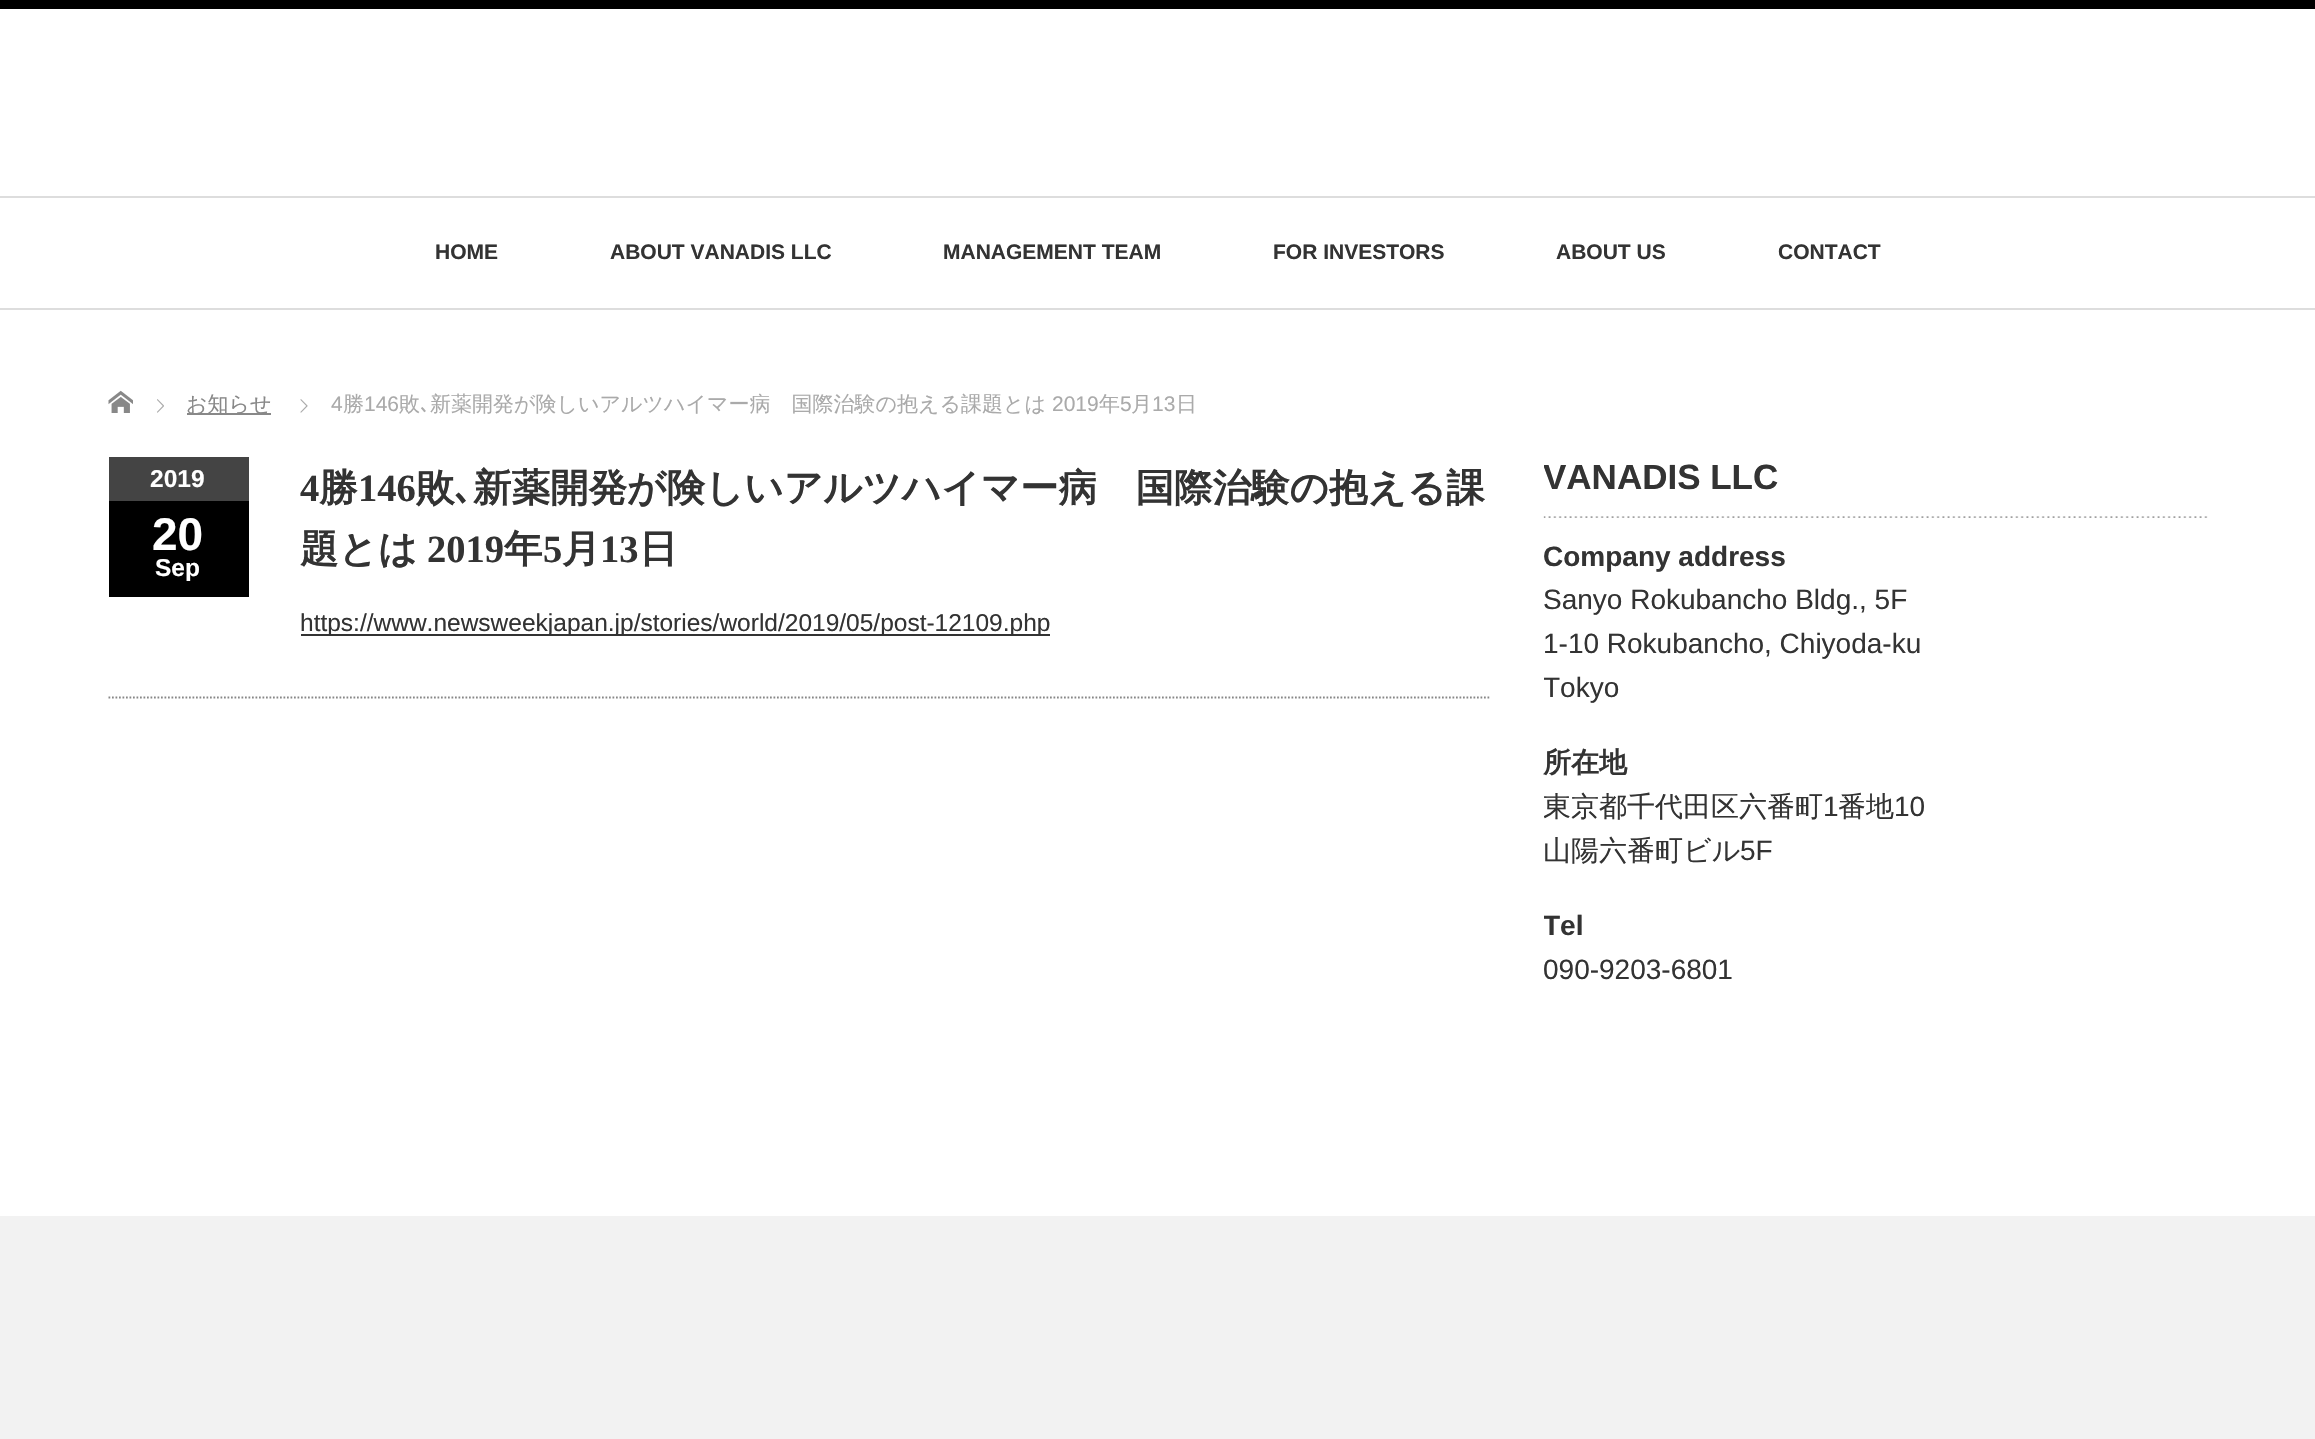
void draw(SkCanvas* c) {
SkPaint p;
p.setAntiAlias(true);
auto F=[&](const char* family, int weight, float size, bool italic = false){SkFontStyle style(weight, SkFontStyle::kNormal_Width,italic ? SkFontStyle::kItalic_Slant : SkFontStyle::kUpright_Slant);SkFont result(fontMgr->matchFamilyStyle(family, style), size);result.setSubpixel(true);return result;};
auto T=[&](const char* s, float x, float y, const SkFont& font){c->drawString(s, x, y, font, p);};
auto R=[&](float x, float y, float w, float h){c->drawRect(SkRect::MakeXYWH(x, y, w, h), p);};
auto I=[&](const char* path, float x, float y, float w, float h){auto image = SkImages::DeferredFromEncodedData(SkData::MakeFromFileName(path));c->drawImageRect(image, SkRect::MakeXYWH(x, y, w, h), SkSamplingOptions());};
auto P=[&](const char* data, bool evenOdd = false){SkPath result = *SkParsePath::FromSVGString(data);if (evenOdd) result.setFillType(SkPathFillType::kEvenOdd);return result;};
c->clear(0xffffffff);
p.setColor(0xff000000);
R(0,0,2315,9);
p.setColor(0xffdddddd);
R(0,308,2315,2);
R(0,196,2315,2);
auto f1 = F("Liberation Sans",700,21);
p.setColor(0xff333333);
T("HOME",435,259,f1);
T("ABOUT VANADIS LLC",610,259,f1);
T("MANAGEMENT TEAM",943,259,f1);
T("FOR INVESTORS",1273,259,f1);
T("ABOUT US",1556,259,f1);
T("CONTACT",1778,259,f1);
I("1.png",108,390,25,23);
I("2.png",157,399,7,14);
p.setColor(0xff888888);
R(187,413,84,2);
auto f2 = F("WenQuanYi Zen Hei",500,21);
T("お知らせ",186,411,f2);
I("3.png",300,399,8,14);
auto f3 = F("Liberation Sans",400,21);
p.setColor(0xffaaaaaa);
T("4",331,411,f3);
T("勝",343,411,f2);
T("146",364,411,f3);
T("敗",399,411,f2);
auto f4 = F("IPAGothic",400,21);
T("､",420,411,f4);
T("新薬開発が険しいアルツハイマー病　国際治験の抱える課題とは",430,411,f2);
T("2019",1052,411,f3);
T("年",1099,411,f2);
T("5",1120,411,f3);
T("月",1131,411,f2);
T("13",1152,411,f3);
T("日",1176,411,f2);
p.setStroke(true);
p.setStrokeWidth(1.8);
p.setColor(0xff878787);
p.setPathEffect(SkDashPathEffect::Make({{1.75f,1.75f}}, 0));
c->drawPath(P("M108.5 697.5h1382.5"),p);
p.setPathEffect(nullptr);
p.setStroke(false);
p.setColor(0xff000000);
R(109,501,140,96);
p.setColor(0xff444444);
R(109,457,140,44);
auto f5 = F("Liberation Sans",700,24.5);
p.setColor(0xffffffff);
T("2019",150,487,f5);
auto f6 = F("Liberation Sans",700,46);
T("20",152,550,f6);
T("Sep",155,576,f5);
auto f7 = F("Liberation Serif",700,38.5);
p.setColor(0xff333333);
T("4",300,501,f7);
auto f8 = F("WenQuanYi Zen Hei",700,38.5);
T("勝",319,501,f8);
T("146",358,501,f7);
T("敗",416,501,f8);
auto f9 = F("IPAGothic",700,38.5);
T("､",454,501,f9);
T("新薬開発が険しいアルツハイマー病　国際治験の抱える課",473,501,f8);
T("題とは",300,562,f8);
T("2019",427,562,f7);
T("年",504,562,f8);
T("5",543,562,f7);
T("月",562,562,f8);
T("13",600,562,f7);
T("日",639,562,f8);
R(301,634,749,2);
auto f10 = F("Liberation Sans",400,24.5);
T("https://www.newsweekjapan.jp/stories/world/2019/05/post-12109.php",300,631,f10);
I("4.png",1543,516,665,2);
c->save();
c->clipRect(SkRect::MakeXYWH(1544,457,665,567));
auto f11 = F("Liberation Sans",700,35);
T("VANADIS LLC",1543,489,f11);
auto f12 = F("Liberation Sans",700,28);
T("Company address",1543,566,f12);
c->restore();
auto f13 = F("Liberation Sans",400,28);
T("Sanyo Rokubancho Bldg., 5F",1543,609,f13);
T("1-10 Rokubancho, Chiyoda-ku",1543,653,f13);
c->save();
c->clipRect(SkRect::MakeXYWH(1544,457,665,567));
T("Tokyo",1543,697,f13);
c->restore();
auto f14 = F("WenQuanYi Zen Hei",700,28);
T("所在地",1543,772,f14);
c->save();
c->clipRect(SkRect::MakeXYWH(1544,457,665,567));
auto f15 = F("WenQuanYi Zen Hei",500,28);
T("東京都千代田区六番町",1543,816,f15);
c->restore();
T("1",1823,816,f13);
T("番地",1838,816,f15);
T("10",1894,816,f13);
T("山陽六番町ビル",1543,860,f15);
T("5F",1740,860,f13);
c->save();
c->clipRect(SkRect::MakeXYWH(1544,457,665,567));
T("Tel",1543,935,f12);
T("090-9203-6801",1543,979,f13);
c->restore();
p.setColor(0xfff2f2f2);
R(0,1216,2315,223);
}
